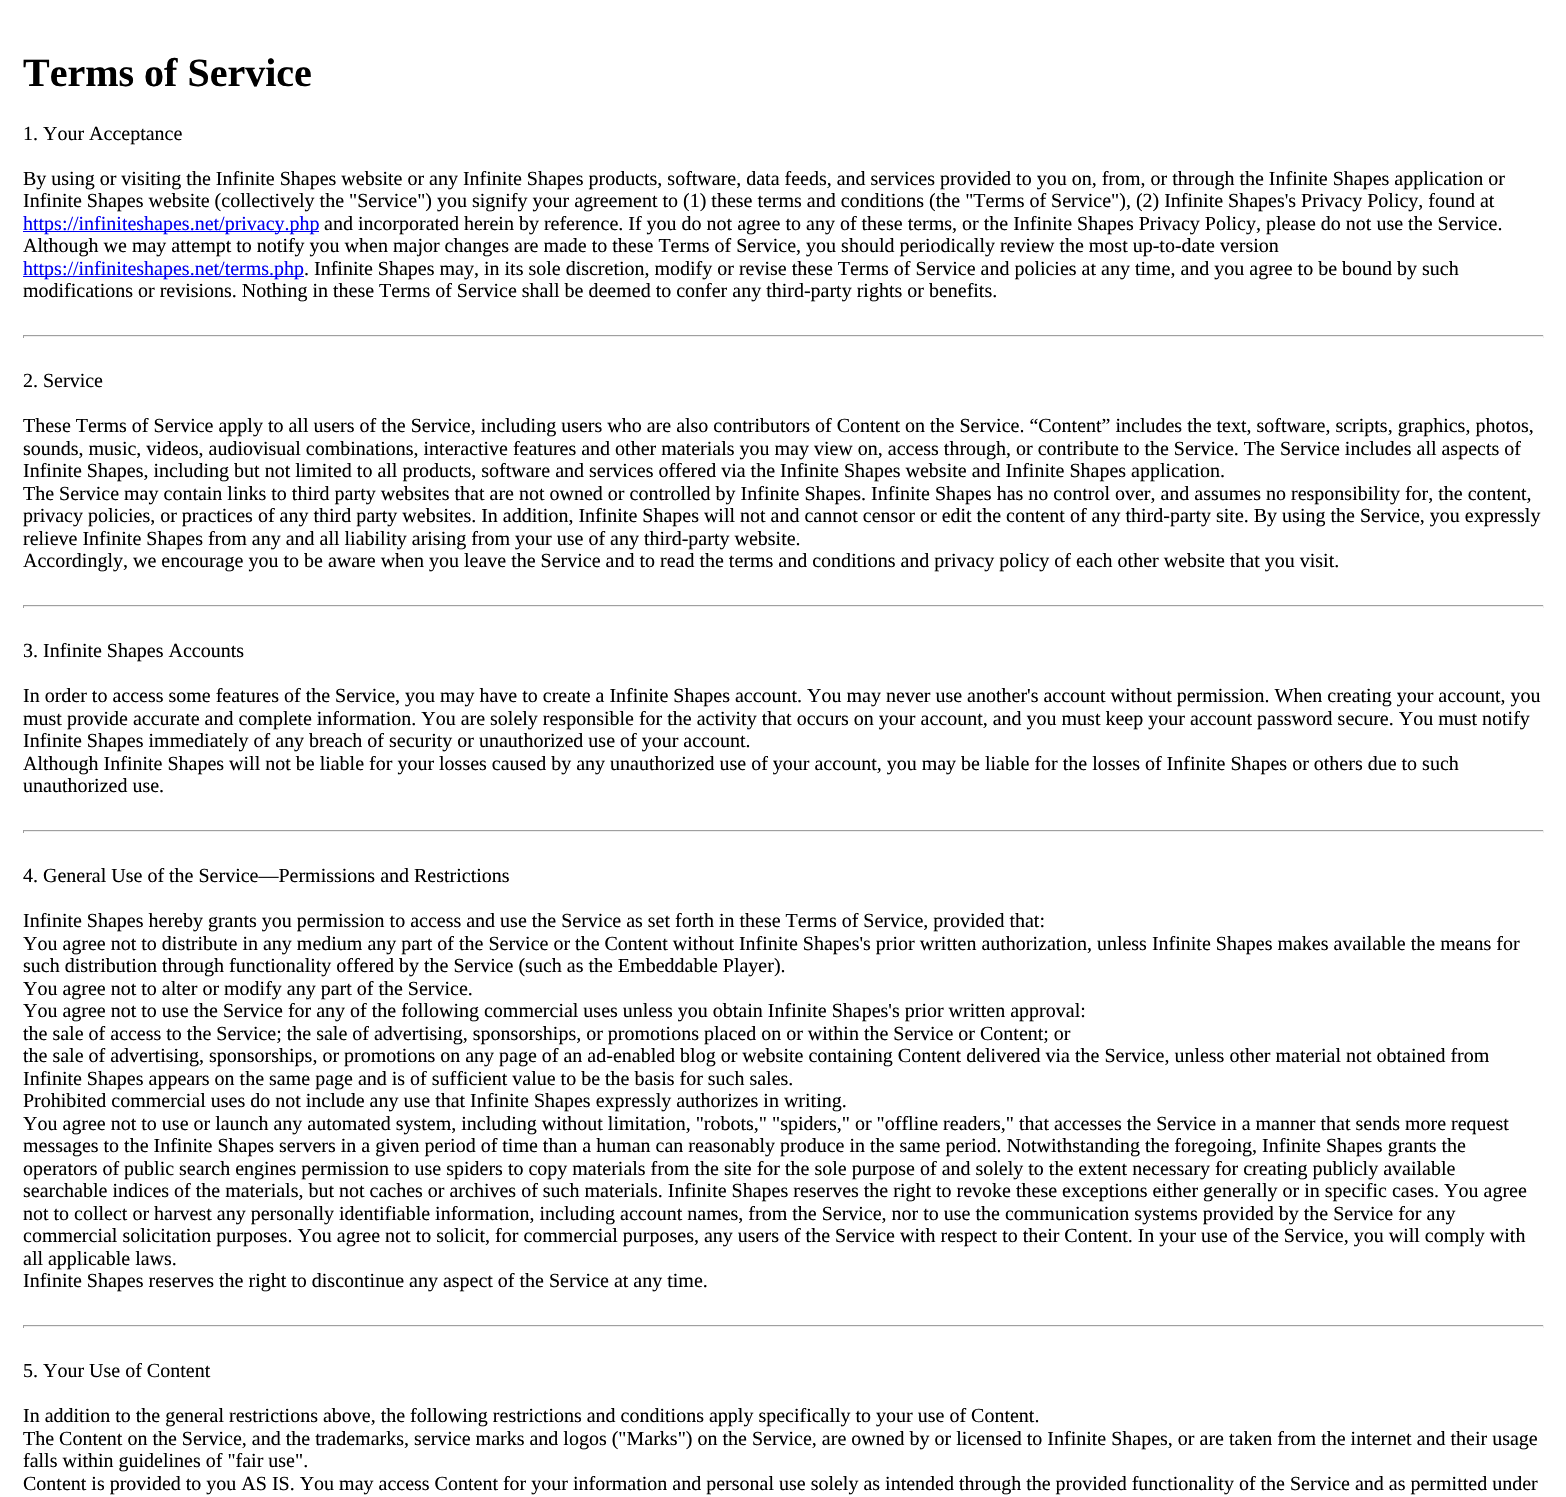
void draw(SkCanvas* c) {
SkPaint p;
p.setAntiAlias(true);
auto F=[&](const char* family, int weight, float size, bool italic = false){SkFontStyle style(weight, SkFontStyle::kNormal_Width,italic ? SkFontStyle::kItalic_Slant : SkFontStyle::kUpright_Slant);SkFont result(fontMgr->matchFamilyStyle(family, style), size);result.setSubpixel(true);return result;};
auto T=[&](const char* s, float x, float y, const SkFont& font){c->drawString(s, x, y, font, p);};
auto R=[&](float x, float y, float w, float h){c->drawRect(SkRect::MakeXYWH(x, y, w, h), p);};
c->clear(0xffffffff);
auto f1 = F("Liberation Serif",700,40);
p.setColor(0xff000000);
T("Terms of Service",23,86,f1);
auto f2 = F("Liberation Serif",400,20);
T("1. Your Acceptance",23,140,f2);
T("By using or visiting the Infinite Shapes website or any Infinite Shapes products, software, data feeds, and services provided to you on, from, or through the Infinite Shapes application or",23,185,f2);
T("Infinite Shapes website (collectively the \"Service\") you signify your agreement to (1) these terms and conditions (the \"Terms of Service\"), (2) Infinite Shapes's Privacy Policy, found at",23,207,f2);
p.setColor(0xff0000ee);
R(23,231,296,1);
T("https://infiniteshapes.net/privacy.php",23,230,f2);
p.setColor(0xff000000);
T("and incorporated herein by reference. If you do not agree to any of these terms, or the Infinite Shapes Privacy Policy, please do not use the Service.",324,230,f2);
T("Although we may attempt to notify you when major changes are made to these Terms of Service, you should periodically review the most up-to-date version",23,252,f2);
p.setColor(0xff0000ee);
R(23,276,281,1);
T("https://infiniteshapes.net/terms.php",23,275,f2);
p.setColor(0xff000000);
T(". Infinite Shapes may, in its sole discretion, modify or revise these Terms of Service and policies at any time, and you agree to be bound by such",304,275,f2);
T("modifications or revisions. Nothing in these Terms of Service shall be deemed to confer any third-party rights or benefits.",23,297,f2);
p.setColor(0xff9f9f9f);
R(23,335,1521,1);
p.setColor(0xffeeeeee);
R(1543,335,1,3);
R(23,336,1521,1);
p.setColor(0xff9f9f9f);
R(23,335,1,3);
p.setColor(0xff000000);
T("2. Service",23,387,f2);
T("These Terms of Service apply to all users of the Service, including users who are also contributors of Content on the Service. “Content” includes the text, software, scripts, graphics, photos,",23,432,f2);
T("sounds, music, videos, audiovisual combinations, interactive features and other materials you may view on, access through, or contribute to the Service. The Service includes all aspects of",23,455,f2);
T("Infinite Shapes, including but not limited to all products, software and services offered via the Infinite Shapes website and Infinite Shapes application.",23,477,f2);
T("The Service may contain links to third party websites that are not owned or controlled by Infinite Shapes. Infinite Shapes has no control over, and assumes no responsibility for, the content,",23,500,f2);
T("privacy policies, or practices of any third party websites. In addition, Infinite Shapes will not and cannot censor or edit the content of any third-party site. By using the Service, you expressly",23,522,f2);
T("relieve Infinite Shapes from any and all liability arising from your use of any third-party website.",23,545,f2);
T("Accordingly, we encourage you to be aware when you leave the Service and to read the terms and conditions and privacy policy of each other website that you visit.",23,567,f2);
p.setColor(0xff9f9f9f);
R(23,605,1521,1);
p.setColor(0xffeeeeee);
R(1543,605,1,3);
R(23,606,1521,1);
p.setColor(0xff9f9f9f);
R(23,605,1,3);
p.setColor(0xff000000);
T("3. Infinite Shapes Accounts",23,657,f2);
T("In order to access some features of the Service, you may have to create a Infinite Shapes account. You may never use another's account without permission. When creating your account, you",23,702,f2);
T("must provide accurate and complete information. You are solely responsible for the activity that occurs on your account, and you must keep your account password secure. You must notify",23,725,f2);
T("Infinite Shapes immediately of any breach of security or unauthorized use of your account.",23,747,f2);
T("Although Infinite Shapes will not be liable for your losses caused by any unauthorized use of your account, you may be liable for the losses of Infinite Shapes or others due to such",23,770,f2);
T("unauthorized use.",23,792,f2);
p.setColor(0xff9f9f9f);
R(23,830,1521,1);
p.setColor(0xffeeeeee);
R(1543,830,1,3);
R(23,831,1521,1);
p.setColor(0xff9f9f9f);
R(23,830,1,3);
p.setColor(0xff000000);
T("4. General Use of the Service—Permissions and Restrictions",23,882,f2);
T("Infinite Shapes hereby grants you permission to access and use the Service as set forth in these Terms of Service, provided that:",23,927,f2);
T("You agree not to distribute in any medium any part of the Service or the Content without Infinite Shapes's prior written authorization, unless Infinite Shapes makes available the means for",23,950,f2);
T("such distribution through functionality offered by the Service (such as the Embeddable Player).",23,972,f2);
T("You agree not to alter or modify any part of the Service.",23,995,f2);
T("You agree not to use the Service for any of the following commercial uses unless you obtain Infinite Shapes's prior written approval:",23,1017,f2);
T("the sale of access to the Service; the sale of advertising, sponsorships, or promotions placed on or within the Service or Content; or",23,1040,f2);
T("the sale of advertising, sponsorships, or promotions on any page of an ad-enabled blog or website containing Content delivered via the Service, unless other material not obtained from",23,1062,f2);
T("Infinite Shapes appears on the same page and is of sufficient value to be the basis for such sales.",23,1085,f2);
T("Prohibited commercial uses do not include any use that Infinite Shapes expressly authorizes in writing.",23,1107,f2);
T("You agree not to use or launch any automated system, including without limitation, \"robots,\" \"spiders,\" or \"offline readers,\" that accesses the Service in a manner that sends more request",23,1130,f2);
T("messages to the Infinite Shapes servers in a given period of time than a human can reasonably produce in the same period. Notwithstanding the foregoing, Infinite Shapes grants the",23,1152,f2);
T("operators of public search engines permission to use spiders to copy materials from the site for the sole purpose of and solely to the extent necessary for creating publicly available",23,1175,f2);
T("searchable indices of the materials, but not caches or archives of such materials. Infinite Shapes reserves the right to revoke these exceptions either generally or in specific cases. You agree",23,1197,f2);
T("not to collect or harvest any personally identifiable information, including account names, from the Service, nor to use the communication systems provided by the Service for any",23,1220,f2);
T("commercial solicitation purposes. You agree not to solicit, for commercial purposes, any users of the Service with respect to their Content. In your use of the Service, you will comply with",23,1242,f2);
T("all applicable laws.",23,1265,f2);
T("Infinite Shapes reserves the right to discontinue any aspect of the Service at any time.",23,1287,f2);
p.setColor(0xff9f9f9f);
R(23,1325,1521,1);
p.setColor(0xffeeeeee);
R(1543,1325,1,3);
R(23,1326,1521,1);
p.setColor(0xff9f9f9f);
R(23,1325,1,3);
p.setColor(0xff000000);
T("5. Your Use of Content",23,1377,f2);
T("In addition to the general restrictions above, the following restrictions and conditions apply specifically to your use of Content.",23,1422,f2);
T("The Content on the Service, and the trademarks, service marks and logos (\"Marks\") on the Service, are owned by or licensed to Infinite Shapes, or are taken from the internet and their usage",23,1445,f2);
T("falls within guidelines of \"fair use\".",23,1467,f2);
T("Content is provided to you AS IS. You may access Content for your information and personal use solely as intended through the provided functionality of the Service and as permitted under",23,1490,f2);
}
